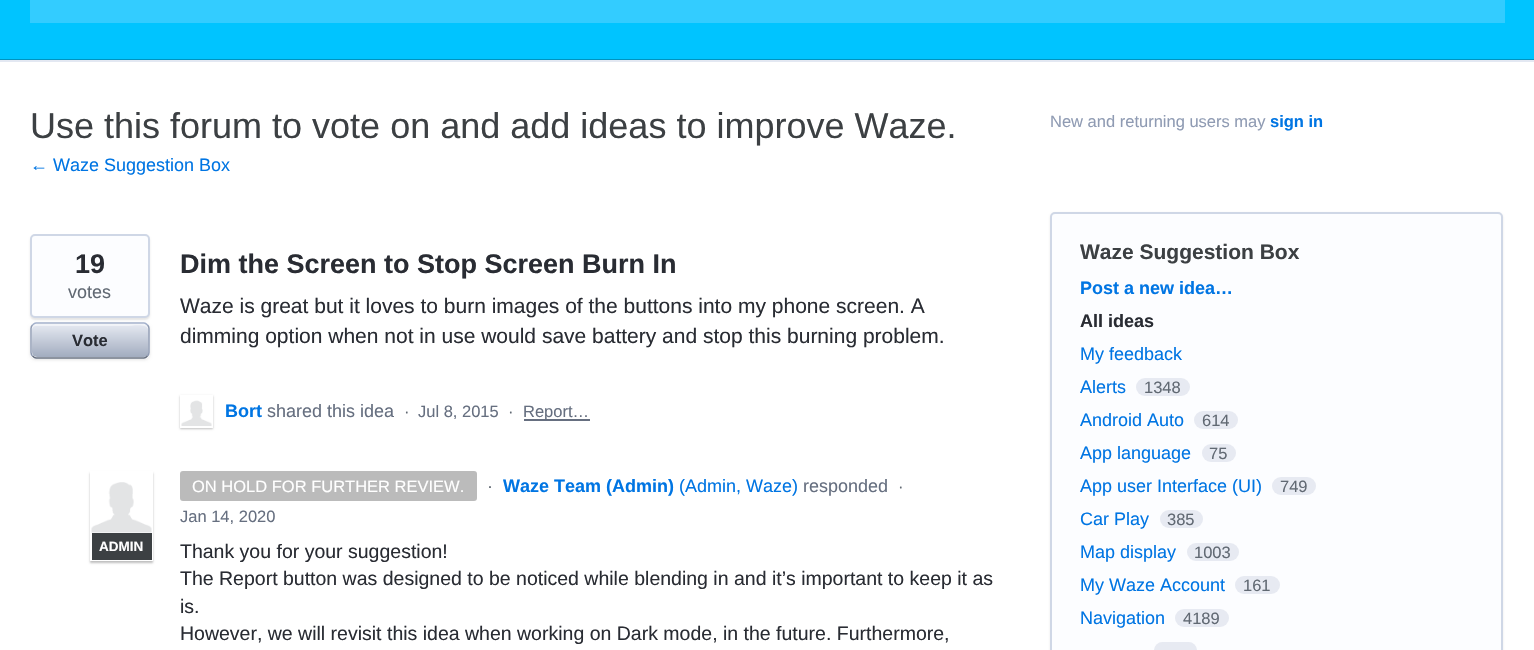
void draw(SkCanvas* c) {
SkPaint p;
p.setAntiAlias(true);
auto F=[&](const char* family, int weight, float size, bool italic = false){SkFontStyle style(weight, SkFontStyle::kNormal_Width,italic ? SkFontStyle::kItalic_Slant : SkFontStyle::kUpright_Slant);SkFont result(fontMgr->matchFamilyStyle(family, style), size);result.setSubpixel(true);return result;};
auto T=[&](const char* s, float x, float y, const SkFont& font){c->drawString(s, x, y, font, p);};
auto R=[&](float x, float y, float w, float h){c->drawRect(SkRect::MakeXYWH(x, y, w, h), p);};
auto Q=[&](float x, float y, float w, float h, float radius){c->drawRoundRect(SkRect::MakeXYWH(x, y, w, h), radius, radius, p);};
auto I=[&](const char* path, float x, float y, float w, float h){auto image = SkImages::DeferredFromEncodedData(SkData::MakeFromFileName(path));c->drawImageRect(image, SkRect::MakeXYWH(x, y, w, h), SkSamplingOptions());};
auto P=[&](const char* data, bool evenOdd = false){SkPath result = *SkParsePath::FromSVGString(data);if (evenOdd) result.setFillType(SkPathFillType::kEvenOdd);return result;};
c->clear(0xff00c4ff);
p.setColor(0xff0093bf);
R(0,59,1534,1);
p.setColor(0xff33ccff);
R(30,0,1475,23);
p.setColor(0xffffffff);
R(0,62,1534,588);
p.setColor(0xffe3e8f2);
R(0,60,1534,2);
auto f1 = F("Liberation Sans",400,36);
p.setColor(0xff3c4043);
T("Use this forum to vote on and add ideas to improve Waze.",30,138,f1);
auto f2 = F("Liberation Sans",400,18);
p.setColor(0xff0075e3);
T("← Waze Suggestion Box",30,171,f2);
p.setColor(0x1a000000);
p.setMaskFilter(SkMaskFilter::MakeBlur(kNormal_SkBlurStyle, 1));
c->drawRoundRect(SkRect::MakeXYWH(30,236,120,84),5,5,p);
p.setMaskFilter(nullptr);
p.setColor(0xfffcfdff);
c->drawRoundRect(SkRect::MakeXYWH(31,235,118,82),4,4,p);
p.setStroke(true);
p.setStrokeWidth(2);
p.setColor(0xffcfd7e6);
c->drawRoundRect(SkRect::MakeXYWH(31,235,118,82),4,4,p);
auto f3 = F("Liberation Sans",700,27);
p.setStroke(false);
p.setColor(0xff292c33);
T("19",75,273,f3);
p.setColor(0xff616973);
T("votes",68,298,f2);
c->save();
c->clipPath(P("M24 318h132v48h-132zm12 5h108c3.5 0 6 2.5 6 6v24c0 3.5-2.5 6-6 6h-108c-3.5 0-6-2.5-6-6v-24c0-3.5 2.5-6 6-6z",true),true);
p.setColor(0x1a000000);
p.setMaskFilter(SkMaskFilter::MakeBlur(kNormal_SkBlurStyle, 1.5));
c->drawRoundRect(SkRect::MakeXYWH(30,324,120,36),6,6,p);
p.setMaskFilter(nullptr);
c->restore();
{
const SkColor colors[] = {0xffe6eaf2,0xffa2acbf};
const float stops[] = {0,1};
const SkPoint ends[] = {{32,324}, {32,357}};
p.setShader(SkGradientShader::MakeLinear(ends, colors, stops, 2, SkTileMode::kClamp));
p.setAlpha(255);
}
Q(32,324,117,33,5);
p.setShader(nullptr);
p.setColor(0x80ffffff);
c->drawPath(P("M36 326h90c6 0 20-3 22 3v26c2-3 1-11 1-15c0-20 1-16-23-16h-71c-5 0-23-5-23 6c0-2 2-4 4-4z"),p);
p.setStroke(true);
p.setStrokeWidth(1.5);
p.setColor(0xffa3b1cc);
c->drawPath(P("M32.5 325c1-1 2-2 3.5-2h108c1.5 0 2.5 1 3.5 2"),p);
p.setColor(0xff8f9bb3);
c->drawPath(P("M147.5 325c1 1 1.5 2 1.5 3.5v24c0 1.5-.5 2.5-1.5 3.5"),p);
p.setColor(0xff666f80);
c->drawPath(P("M147.5 356c-1 1-2 2-3.5 2h-108c-1.5 0-2.5-1-3.5-2"),p);
p.setColor(0xff8f9bb3);
c->drawPath(P("M32.5 356c-1-1-1.5-2-1.5-3.5v-24c0-1.5 .5-2.5 1.5-3.5"),p);
auto f4 = F("Liberation Sans",700,16.5);
p.setStroke(false);
p.setColor(0xff292c33);
T("Vote",72,346,f4);
T("Dim the Screen to Stop Screen Burn In",180,273,f3);
auto f5 = F("Liberation Sans",400,21);
T("Waze is great but it loves to burn images of the buttons into my phone screen. A",180,313,f5);
T("dimming option when not in use would save battery and stop this burning problem.",180,343,f5);
c->save();
c->clipPath(P("M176 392h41v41h-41zm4 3h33v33h-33z",true),true);
p.setColor(0x40000000);
p.setMaskFilter(SkMaskFilter::MakeBlur(kNormal_SkBlurStyle, 1));
c->drawRect(SkRect::MakeXYWH(180,396,33,33),p);
p.setMaskFilter(nullptr);
c->restore();
p.setStroke(true);
p.setStrokeWidth(2);
p.setColor(0xffffffff);
c->drawRect(SkRect::MakeXYWH(181,396,31,31),p);
I("1.png",181,400,31,26);
auto f6 = F("Liberation Sans",700,18);
p.setStroke(false);
p.setColor(0xff0075e3);
T("Bort",225,417,f6);
p.setColor(0xff666f80);
T("shared this idea",267,417,f2);
auto f7 = F("Liberation Sans",400,16.5);
p.setColor(0xff616973);
T("·",404,417,f7);
p.setColor(0xff666f80);
T("Jul 8, 2015",418,417,f7);
p.setColor(0xff616973);
T("·",508,417,f7);
p.setColor(0xff666f80);
R(524,419,66,2);
T("Report…",523,417,f7);
p.setColor(0xff0075e3);
T("Waze Team (Admin)",503,492,f6);
T("(Admin, Waze)",679,492,f2);
c->save();
c->clipPath(P("M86 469h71v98h-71zm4 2h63v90h-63z",true),true);
p.setColor(0x40000000);
p.setMaskFilter(SkMaskFilter::MakeBlur(kNormal_SkBlurStyle, 1));
c->drawRect(SkRect::MakeXYWH(90,473,63,90),p);
p.setMaskFilter(nullptr);
c->restore();
I("2.png",91,482,61,51);
p.setColor(0xff3c4043);
R(92,533,60,27);
auto f8 = F("Liberation Sans",700,13.5);
p.setColor(0xffffffff);
T("ADMIN",99,551,f8);
p.setColor(0xff666f80);
T("responded",803,492,f2);
p.setColor(0xffbbbbbb);
Q(180,471,297,30,3);
p.setColor(0xffffffff);
T("ON HOLD FOR FURTHER REVIEW.",192,492,f7);
p.setColor(0xff616973);
T("·",487,492,f2);
T("·",898,492,f7);
p.setColor(0xff666f80);
T("Jan 14, 2020",180,522,f7);
auto f9 = F("Liberation Sans",400,19.5);
p.setColor(0xff292c33);
T("Thank you for your suggestion!",180,558,f9);
T("The Report button was designed to be noticed while blending in and it’s important to keep it as",180,585,f9);
T("is.",180,613,f9);
T("However, we will revisit this idea when working on Dark mode, in the future. Furthermore,",180,640,f9);
p.setColor(0xff8f9bb3);
T("New and returning users may",1050,127,f7);
p.setColor(0xff0075e3);
T("sign in",1270,127,f4);
p.setColor(0x1a000000);
p.setMaskFilter(SkMaskFilter::MakeBlur(kNormal_SkBlurStyle, 1));
c->drawRoundRect(SkRect::MakeXYWH(1050,213,453,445),5,5,p);
p.setMaskFilter(nullptr);
p.setColor(0xfffcfdff);
c->drawRoundRect(SkRect::MakeXYWH(1051,213,451,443),4,4,p);
p.setStroke(true);
p.setColor(0xffcfd7e6);
c->drawRoundRect(SkRect::MakeXYWH(1051,213,451,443),4,4,p);
auto f10 = F("Liberation Sans",700,21);
p.setStroke(false);
p.setColor(0xff3c4043);
T("Waze Suggestion Box",1080,259,f10);
p.setColor(0xff0075e3);
T("Post a new idea…",1080,294,f6);
p.setColor(0xff292c33);
T("All ideas",1080,327,f6);
p.setColor(0xff0075e3);
T("My feedback",1080,360,f2);
T("Alerts",1080,393,f2);
p.setColor(0xffe7eaf2);
Q(1136,378,54,18,9);
p.setColor(0xff616973);
T("1348",1144,393,f7);
p.setColor(0xff0075e3);
T("Android Auto",1080,426,f2);
p.setColor(0xffe7eaf2);
Q(1194,411,44,18,9);
p.setColor(0xff616973);
T("614",1202,426,f7);
p.setColor(0xff0075e3);
T("App language",1080,459,f2);
p.setColor(0xffe7eaf2);
Q(1202,444,34,18,9);
p.setColor(0xff616973);
T("75",1209,459,f7);
p.setColor(0xff0075e3);
T("App user Interface (UI)",1080,492,f2);
p.setColor(0xffe7eaf2);
Q(1272,477,44,18,9);
p.setColor(0xff616973);
T("749",1280,492,f7);
p.setColor(0xff0075e3);
T("Car Play",1080,525,f2);
p.setColor(0xffe7eaf2);
Q(1160,510,43,18,9);
p.setColor(0xff616973);
T("385",1167,525,f7);
p.setColor(0xff0075e3);
T("Map display",1080,558,f2);
p.setColor(0xffe7eaf2);
Q(1187,543,52,18,9);
p.setColor(0xff616973);
T("1003",1194,558,f7);
p.setColor(0xff0075e3);
T("My Waze Account",1080,591,f2);
p.setColor(0xffe7eaf2);
Q(1235,576,45,18,9);
p.setColor(0xff616973);
T("161",1243,591,f7);
p.setColor(0xff0075e3);
T("Navigation",1080,624,f2);
p.setColor(0xffe7eaf2);
Q(1175,609,54,18,9);
p.setColor(0xff616973);
T("4189",1183,624,f7);
p.setColor(0xffe7eaf2);
Q(1154,642,43,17,9);
}
